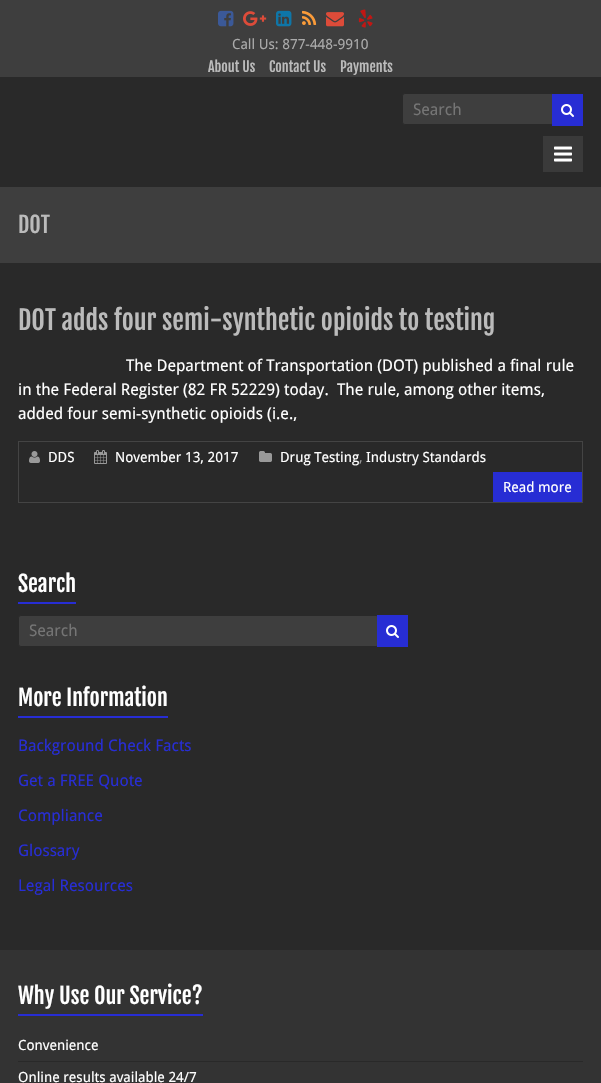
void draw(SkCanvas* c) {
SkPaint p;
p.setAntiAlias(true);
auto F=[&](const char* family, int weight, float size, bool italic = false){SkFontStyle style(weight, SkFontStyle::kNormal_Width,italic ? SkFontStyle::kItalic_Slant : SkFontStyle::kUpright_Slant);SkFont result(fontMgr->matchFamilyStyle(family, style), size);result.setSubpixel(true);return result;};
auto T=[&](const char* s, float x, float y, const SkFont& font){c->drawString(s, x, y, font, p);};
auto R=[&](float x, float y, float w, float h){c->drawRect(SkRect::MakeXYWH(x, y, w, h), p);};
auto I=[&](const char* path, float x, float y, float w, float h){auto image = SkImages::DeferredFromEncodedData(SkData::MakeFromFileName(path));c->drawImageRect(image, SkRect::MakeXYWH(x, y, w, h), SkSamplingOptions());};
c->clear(0xff292929);
p.setColor(0xff3e3e3e);
R(0,0,601,77);
I("1.png",218,10,16,17);
I("2.png",243,11,24,15);
I("3.png",276,10,16,17);
I("4.png",302,10,15,15);
I("5.png",326,12,18,15);
I("6.png",358,9,15,19);
auto f1 = F("Droid Sans",400,14);
p.setColor(0xffaaaaaa);
T("Call Us: 877-448-9910",232,49,f1);
auto f2 = F("Fjalla One",400,14);
p.setColor(0xffbbbbbb);
T("About Us",208,72,f2);
T("Contact Us",269,72,f2);
T("Payments",340,72,f2);
p.setColor(0xff3e3e3e);
c->drawRoundRect(SkRect::MakeXYWH(402.5,93.5,151,31),2.5,2.5,p);
p.setStroke(true);
p.setStrokeWidth(1);
p.setColor(0xff292929);
c->drawRoundRect(SkRect::MakeXYWH(402.5,93.5,151,31),2.5,2.5,p);
auto f3 = F("Droid Sans",400,16);
p.setStroke(false);
p.setColor(0xff757575);
T("Search",413,115,f3);
p.setColor(0xff272dd4);
R(552,94,31,32);
I("7.png",561,104,13,13);
p.setColor(0xff3a3a3a);
R(543,136,40,36);
I("8.png",554,146,18,16);
p.setColor(0xff3e3e3e);
R(0,187,601,76);
auto f4 = F("Fjalla One",400,22);
p.setColor(0xffbbbbbb);
T("DOT",18,233,f4);
auto f5 = F("Fjalla One",400,26);
T("DOT adds four semi-synthetic opioids to testing",18,330,f5);
p.setColor(0xffffffff);
T("The Department of Transportation (DOT) published a final rule",126,371,f3);
T("in the Federal Register (82 FR 52229) today.  The rule, among other items,",18,395,f3);
T("added four semi-synthetic opioids (i.e.,",18,419,f3);
p.setStroke(true);
p.setColor(0xff444444);
c->drawRect(SkRect::MakeXYWH(18.5,441.5,564,61),p);
I("9.png",29,451,11,12);
p.setStroke(false);
p.setColor(0xffffffff);
T("DDS",48,462,f1);
I("10.png",94,450,13,14);
T("November 13, 2017",115,462,f1);
I("11.png",259,451,13,11);
T("Drug Testing",280,462,f1);
p.setColor(0xff999999);
T(",",359,462,f1);
p.setColor(0xffffffff);
T("Industry Standards",366,462,f1);
p.setColor(0xff272dd4);
R(493,472,89,30);
p.setColor(0xffffffff);
T("Read more",503,492,f1);
T("Search",18,592,f4);
p.setColor(0xff272dd4);
R(18,602,58,2);
p.setColor(0xff3e3e3e);
c->drawRoundRect(SkRect::MakeXYWH(18.5,615.5,360,31),2.5,2.5,p);
p.setStroke(true);
p.setColor(0xff292929);
c->drawRoundRect(SkRect::MakeXYWH(18.5,615.5,360,31),2.5,2.5,p);
p.setStroke(false);
p.setColor(0xff757575);
T("Search",29,636,f3);
p.setColor(0xff272dd4);
R(377,615,31,32);
I("7.png",386,625,13,13);
p.setColor(0xffffffff);
T("More Information",18,706,f4);
p.setColor(0xff272dd4);
R(18,716,150,2);
T("Background Check Facts",18,751,f3);
T("Get a FREE Quote",18,786,f3);
T("Compliance",18,821,f3);
T("Glossary",18,856,f3);
T("Legal Resources",18,891,f3);
p.setColor(0xff333333);
R(0,950,601,133);
p.setColor(0xffffffff);
T("Why Use Our Service?",18,1004,f4);
p.setColor(0xff272dd4);
R(18,1014,185,2);
p.setColor(0xff292929);
R(18,1061,565,1);
p.setColor(0xffffffff);
T("Convenience",18,1050,f1);
T("Online results available 24/7",18,1082,f1);
}
